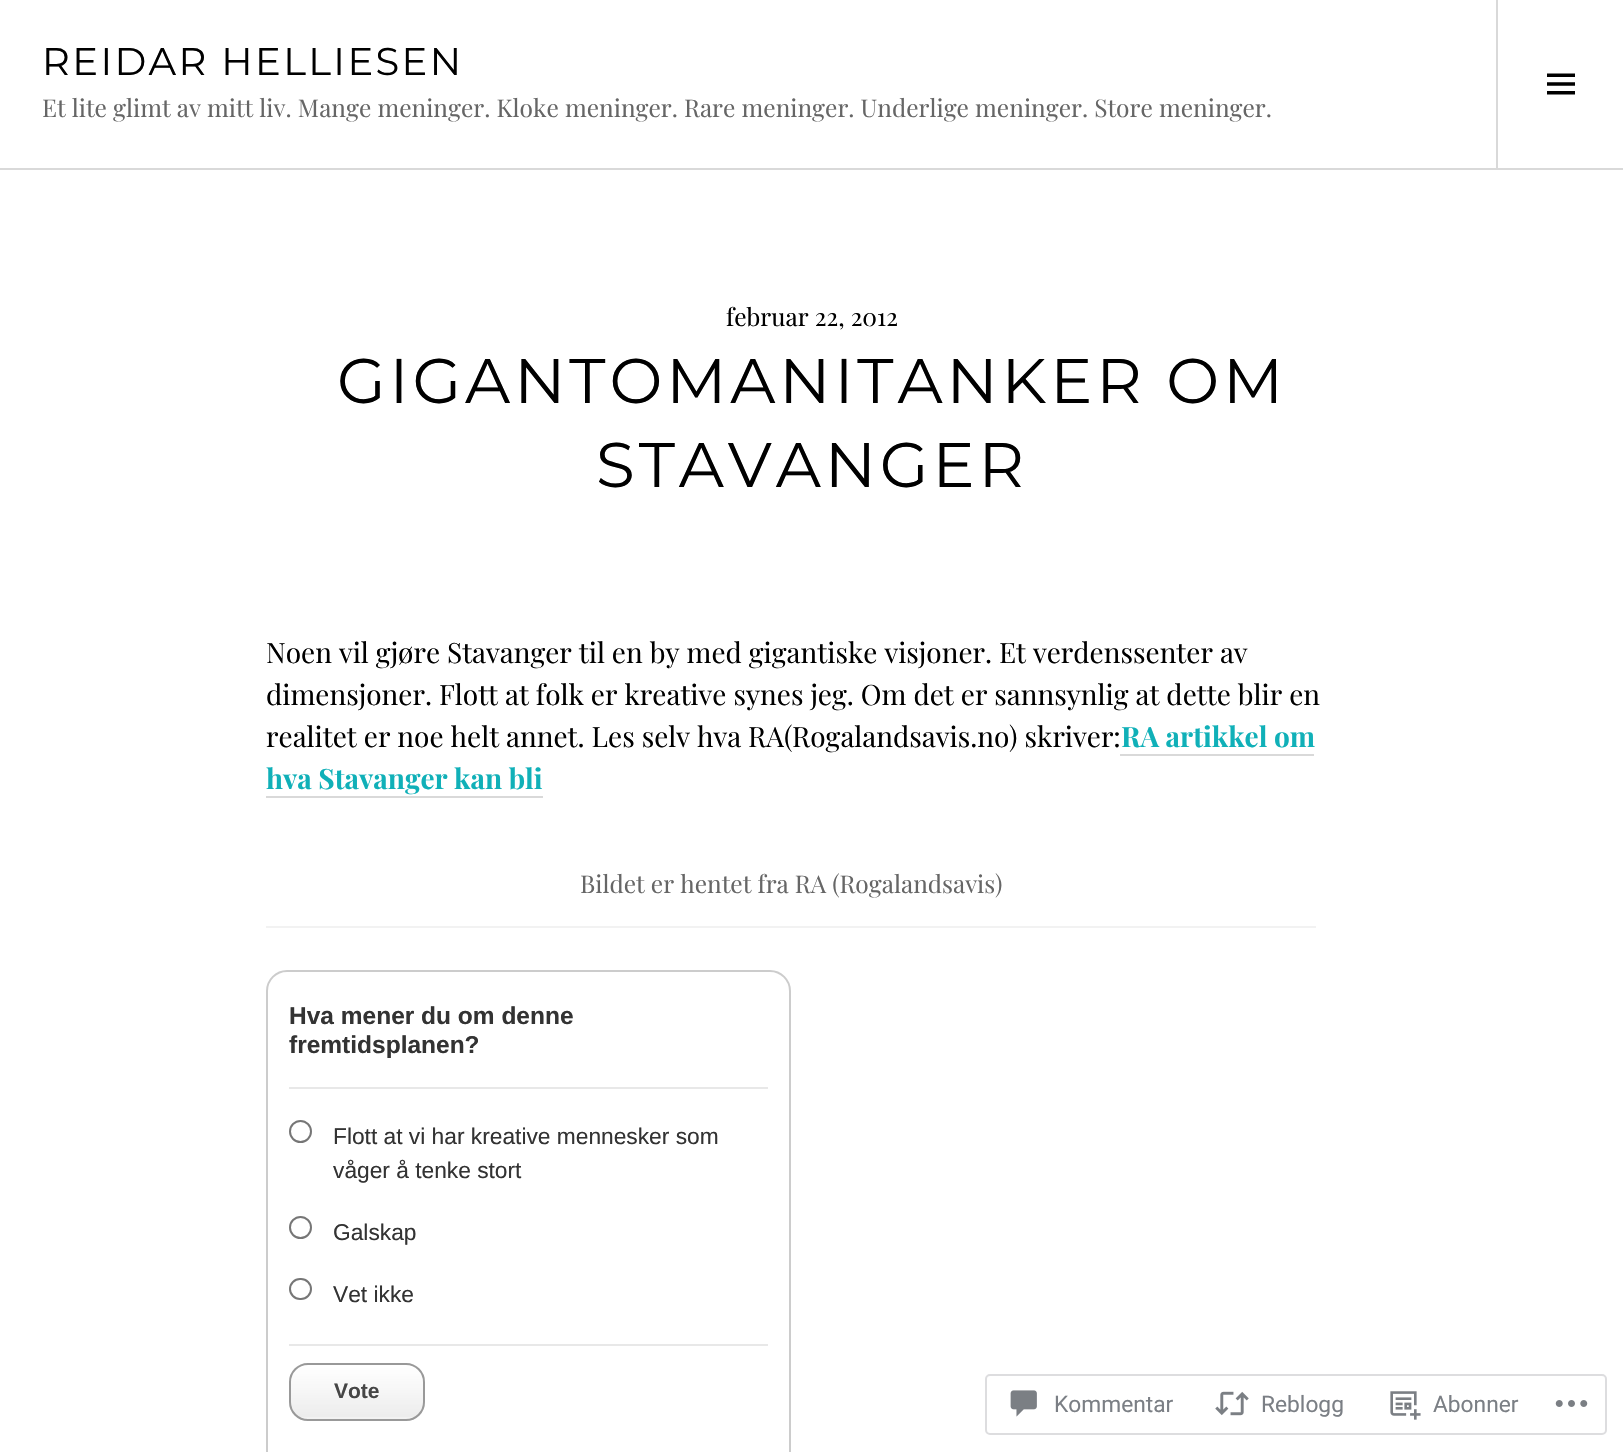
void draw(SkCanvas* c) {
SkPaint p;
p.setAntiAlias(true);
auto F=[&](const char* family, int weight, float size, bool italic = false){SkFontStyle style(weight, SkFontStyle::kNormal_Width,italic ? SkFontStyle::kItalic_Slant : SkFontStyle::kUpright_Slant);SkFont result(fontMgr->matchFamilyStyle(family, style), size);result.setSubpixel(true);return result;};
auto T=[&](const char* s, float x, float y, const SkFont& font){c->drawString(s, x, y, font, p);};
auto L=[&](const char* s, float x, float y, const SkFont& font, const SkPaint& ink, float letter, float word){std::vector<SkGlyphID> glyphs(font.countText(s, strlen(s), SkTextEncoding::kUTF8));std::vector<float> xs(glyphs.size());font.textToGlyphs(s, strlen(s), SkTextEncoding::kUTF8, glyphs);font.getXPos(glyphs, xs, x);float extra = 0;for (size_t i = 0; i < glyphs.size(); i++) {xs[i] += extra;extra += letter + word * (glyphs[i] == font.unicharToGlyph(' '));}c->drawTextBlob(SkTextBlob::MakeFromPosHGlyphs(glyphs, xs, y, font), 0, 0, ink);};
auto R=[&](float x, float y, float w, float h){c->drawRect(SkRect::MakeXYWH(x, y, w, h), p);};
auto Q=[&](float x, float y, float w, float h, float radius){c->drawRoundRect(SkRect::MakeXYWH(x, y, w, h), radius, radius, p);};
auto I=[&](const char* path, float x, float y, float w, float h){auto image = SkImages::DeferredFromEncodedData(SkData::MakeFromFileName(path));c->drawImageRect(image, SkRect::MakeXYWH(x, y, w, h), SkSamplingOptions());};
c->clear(0xffffffff);
p.setColor(0xffd9d9d9);
R(0,168,1623,2);
auto f1 = F("Montserrat",400,38.5);
p.setColor(0xff000000);
L("REIDAR HELLIESEN",42,75,f1,p,2.4,0);
auto f2 = F("Playfair Display",400,24.5);
p.setColor(0xff666666);
T("Et lite glimt av mitt liv. Mange meninger. Kloke meninger. Rare meninger. Underlige meninger. Store meninger.",42,117,f2);
p.setColor(0xffd9d9d9);
R(1496,0,2,168);
I("1.png",1547,73,28,22);
p.setColor(0xff000000);
T("februar 22, 2012",726,326,f2);
auto f3 = F("Montserrat",400,63);
L("GIGANTOMANITANKER OM",337,403,f3,p,3.9,0);
L("STAVANGER",596,487,f3,p,3.9,0);
auto f4 = F("Playfair Display",400,28);
T("Noen vil gjøre Stavanger til en by med gigantiske visjoner. Et verdenssenter av",266,663,f4);
T("dimensjoner. Flott at folk er kreative synes jeg. Om det er sannsynlig at dette blir en",266,705,f4);
T("realitet er noe helt annet. Les selv hva RA(Rogalandsavis.no) skriver:",266,747,f4);
auto f5 = F("Playfair Display",700,28);
p.setColor(0xff10b0b8);
T("RA artikkel om",1121,747,f5);
p.setColor(0xffd9d9d9);
R(1120,754,194,2);
p.setColor(0xff10b0b8);
T("hva Stavanger kan bli",266,789,f5);
p.setColor(0xffd9d9d9);
R(266,796,277,2);
p.setColor(0xfff2f2f2);
R(266,926,1050,2);
p.setColor(0xff666666);
T("Bildet er hentet fra RA (Rogalandsavis)",580,893,f2);
p.setStroke(true);
p.setStrokeWidth(2);
p.setColor(0xffcccccc);
c->drawRoundRect(SkRect::MakeXYWH(267,971,523,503),20,20,p);
auto f6 = F("Liberation Sans",700,24.5);
p.setStroke(false);
p.setColor(0xff333333);
T("Hva mener du om denne",289,1024,f6);
T("fremtidsplanen?",289,1053,f6);
p.setColor(0xffe8e8e8);
R(289,1087,479,2);
R(289,1344,479,2);
p.setStroke(true);
p.setColor(0xff767676);
c->drawCircle(300.5,1131.5,10.5,p);
auto f7 = F("Liberation Sans",400,22.75);
p.setStroke(false);
p.setColor(0xff333333);
T("Flott at vi har kreative mennesker som",333,1144,f7);
T("våger å tenke stort",333,1178,f7);
p.setStroke(true);
p.setColor(0xff767676);
c->drawCircle(300.5,1227.5,10.5,p);
p.setStroke(false);
p.setColor(0xff333333);
T("Galskap",333,1240,f7);
p.setStroke(true);
p.setColor(0xff767676);
c->drawRoundRect(SkRect::MakeXYWH(290,1279,21,20),10,10,p);
p.setStroke(false);
p.setColor(0xff333333);
T("Vet ikke",333,1302,f7);
p.setColor(0xfff2f2f2);
Q(289,1363,136,58,19);
I("2.png",289,1365,136,52);
p.setStroke(true);
p.setColor(0xff999999);
c->drawRoundRect(SkRect::MakeXYWH(290,1364,134,56),18,18,p);
auto f8 = F("Liberation Sans",700,21);
p.setStroke(false);
p.setColor(0xff464646);
T("Vote",334,1398,f8);
p.setStroke(true);
p.setColor(0xffdddddf);
c->drawRoundRect(SkRect::MakeXYWH(986,1375,620,59),4,4,p);
I("3.png",1010,1390,27,27);
auto f9 = F("Roboto",400,22.75);
p.setStroke(false);
p.setColor(0xff7b7f85);
T("Kommentar",1054,1412,f9);
I("4.png",1215,1391,34,25);
T("Reblogg",1261,1412,f9);
I("5.png",1390,1391,31,29);
T("Abonner",1433,1412,f9);
I("6.png",1555,1400,33,7);
}
